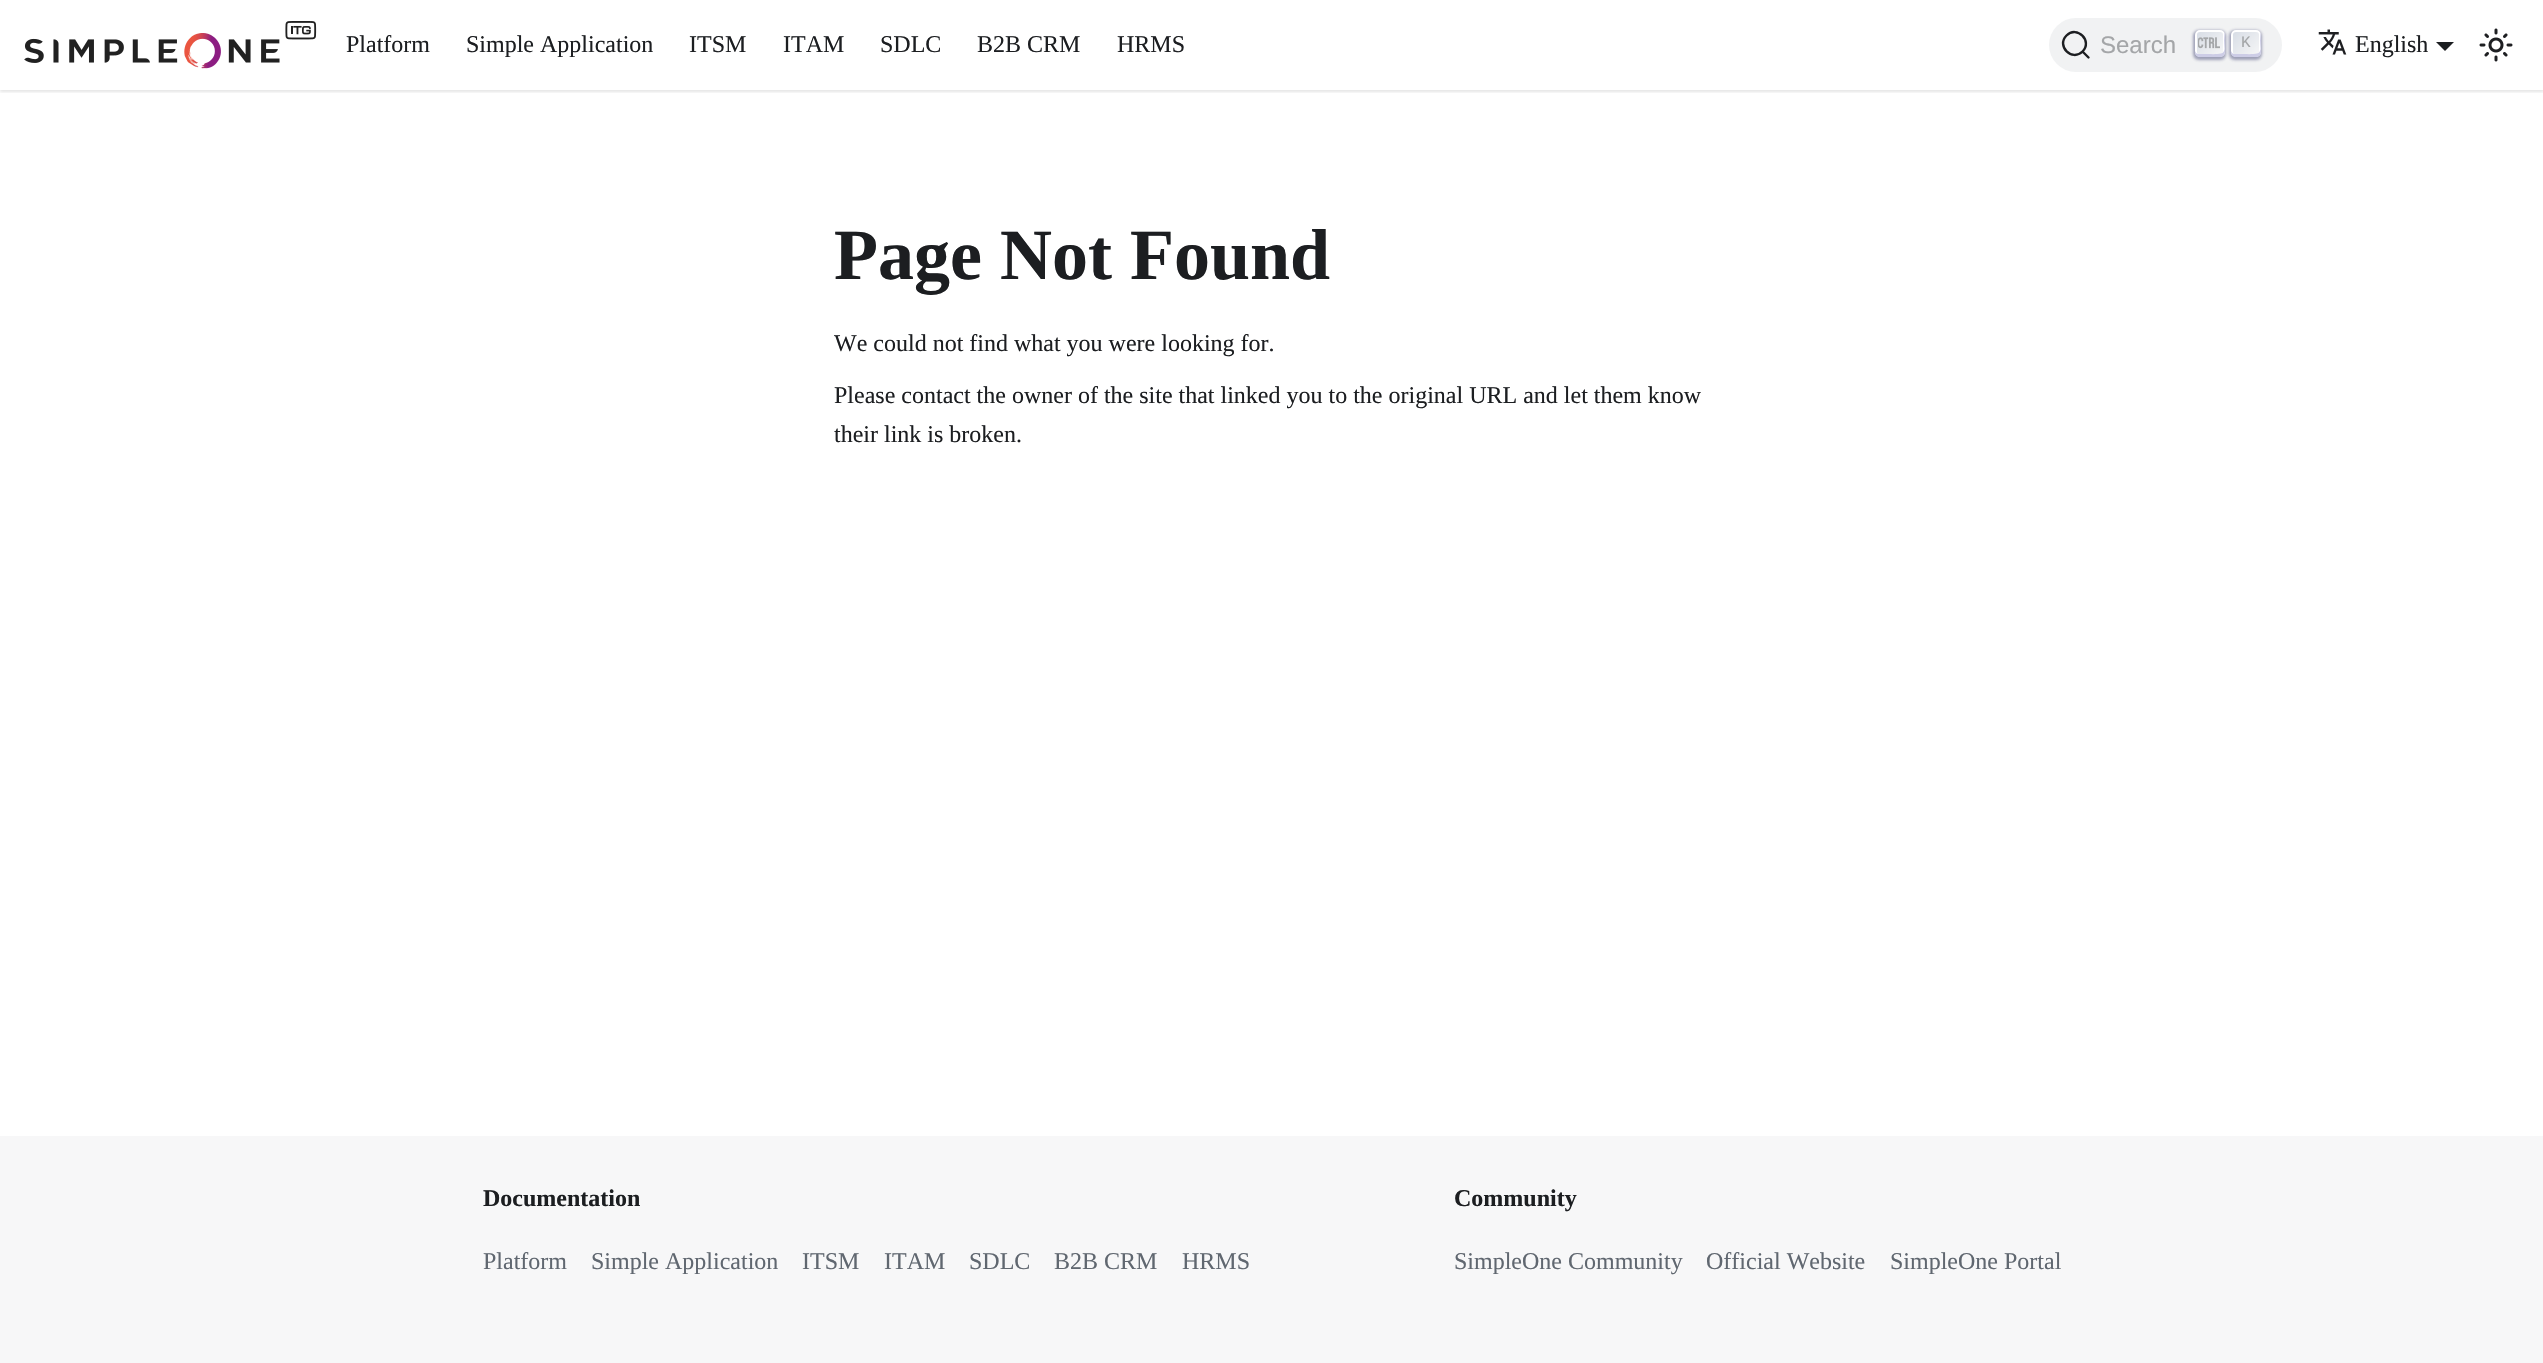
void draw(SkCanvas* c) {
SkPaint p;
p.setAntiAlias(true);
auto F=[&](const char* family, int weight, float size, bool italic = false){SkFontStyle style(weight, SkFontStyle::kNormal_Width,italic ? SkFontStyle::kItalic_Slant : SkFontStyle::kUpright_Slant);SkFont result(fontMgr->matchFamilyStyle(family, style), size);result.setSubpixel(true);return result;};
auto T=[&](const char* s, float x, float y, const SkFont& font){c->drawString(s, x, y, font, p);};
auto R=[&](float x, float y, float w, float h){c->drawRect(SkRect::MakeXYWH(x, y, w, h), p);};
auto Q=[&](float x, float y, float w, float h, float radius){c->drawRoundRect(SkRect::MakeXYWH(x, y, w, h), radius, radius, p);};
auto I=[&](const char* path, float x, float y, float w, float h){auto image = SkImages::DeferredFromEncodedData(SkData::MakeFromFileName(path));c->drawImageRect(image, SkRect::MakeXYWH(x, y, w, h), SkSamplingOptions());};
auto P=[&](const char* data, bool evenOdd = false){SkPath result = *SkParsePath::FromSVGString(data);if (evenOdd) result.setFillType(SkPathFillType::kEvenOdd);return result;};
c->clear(0xffffffff);
c->save();
c->clipRect(SkRect::MakeXYWH(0,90,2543,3));
p.setColor(0x1a000000);
p.setMaskFilter(SkMaskFilter::MakeBlur(kNormal_SkBlurStyle, 1.5));
c->drawRect(SkRect::MakeXYWH(0,2,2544,90),p);
p.setMaskFilter(nullptr);
c->restore();
I("1.png",24,21,293,48);
auto f1 = F("Liberation Serif",400,24);
p.setColor(0xff1c1e21);
T("Platform",346,52,f1);
T("Simple Application",466,52,f1);
T("ITSM",689,52,f1);
T("ITAM",783,52,f1);
T("SDLC",880,52,f1);
T("B2B CRM",977,52,f1);
T("HRMS",1117,52,f1);
p.setColor(0xfff1f2f3);
Q(2049,18,233,54,27);
p.setStroke(true);
p.setStrokeWidth(2.4);
p.setStrokeCap(SkPaint::kRound_Cap);
p.setStrokeJoin(SkPaint::kRound_Join);
p.setColor(0xff1c1e21);
c->drawPath(P("M2082.5 51.5l6 6l-6-6c-10.5 10.5-26.5-5.5-16-16c10.5-10.5 26.5 5.5 16 16z"),p);
auto f2 = F("Liberation Sans",400,24);
p.setStroke(false);
p.setColor(0xffa4a6a8);
T("Search",2100,53,f2);
p.setColor(0x661e235a);
p.setMaskFilter(SkMaskFilter::MakeBlur(kNormal_SkBlurStyle, 1.5));
c->drawRoundRect(SkRect::MakeXYWH(2193,30,33,30),6,6,p);
p.setMaskFilter(nullptr);
{
const SkColor colors[] = {0xffd5dbe4,0xfff8f8f8};
const float stops[] = {0,1};
const SkPoint ends[] = {{2195,29}, {2224,58}};
p.setShader(SkGradientShader::MakeLinear(ends, colors, stops, 2, SkTileMode::kClamp));
p.setAlpha(255);
}
c->drawRoundRect(SkRect::MakeXYWH(2196,31,28,25),4,4,p);
p.setStroke(true);
p.setStrokeWidth(2);
p.setStrokeCap(SkPaint::kButt_Cap);
p.setStrokeJoin(SkPaint::kMiter_Join);
p.setShader(nullptr);
p.setColor(0xffffffff);
c->drawRoundRect(SkRect::MakeXYWH(2196,31,28,25),4,4,p);
p.setStroke(false);
p.setColor(0xffcdcde6);
c->drawPath(P("M2195 51v1c0 3 2 5 5 5h20c3 0 5-2 5-5v-17c0-1 0-1.5-.5-2.5l-.5 8l.5 8.5c0 1-.5 2-1 3c-.5 1-1.5 1-2.5 1.5c-4 1-11.5 .5-16.5 .5h-7c-1-.5-2-1.5-2.5-3z"),p);
I("2.png",2198,37,22,12);
p.setColor(0x661e235a);
p.setMaskFilter(SkMaskFilter::MakeBlur(kNormal_SkBlurStyle, 1.5));
c->drawRoundRect(SkRect::MakeXYWH(2229,30,33,30),6,6,p);
p.setMaskFilter(nullptr);
{
const SkColor colors[] = {0xffd5dbe4,0xfff8f8f8};
const float stops[] = {0,1};
const SkPoint ends[] = {{2231,29}, {2260,58}};
p.setShader(SkGradientShader::MakeLinear(ends, colors, stops, 2, SkTileMode::kClamp));
p.setAlpha(255);
}
c->drawRoundRect(SkRect::MakeXYWH(2232,31,28,25),4,4,p);
p.setStroke(true);
p.setShader(nullptr);
p.setColor(0xffffffff);
c->drawRoundRect(SkRect::MakeXYWH(2232,31,28,25),4,4,p);
p.setStroke(false);
p.setColor(0xffcdcde6);
c->drawPath(P("M2231 51v1c0 3 2 5 5 5h20c3 0 5-2 5-5v-17c0-1 0-1.5-.5-2.5l-.5 8l.5 8.5c0 1-.5 2-1 3c-.5 1-1.5 1-2.5 1.5c-4 1-11.5 .5-16.5 .5h-7c-1-.5-2-1.5-2.5-3z"),p);
auto f3 = F("Liberation Mono",400,16);
p.setColor(0xffa4a6a8);
T("K",2241,47,f3);
I("3.png",2318,29,29,26);
p.setColor(0xff1c1e21);
T("English",2355,52,f1);
c->drawPath(P("M2436 42h18l-9 9z"),p);
I("4.png",2479,28,34,34);
auto f4 = F("Liberation Serif",700,72);
T("Page Not Found",834,279,f4);
T("We could not find what you were looking for.",834,351,f1);
T("Please contact the owner of the site that linked you to the original URL and let them know",834,403,f1);
T("their link is broken.",834,442,f1);
p.setColor(0xfff7f7f8);
R(0,1136,2543,227);
auto f5 = F("Liberation Serif",700,24);
p.setColor(0xff1c1e21);
T("Documentation",483,1206,f5);
p.setColor(0xff606770);
T("Platform",483,1269,f1);
T("Simple Application",591,1269,f1);
T("ITSM",802,1269,f1);
T("ITAM",884,1269,f1);
T("SDLC",969,1269,f1);
T("B2B CRM",1054,1269,f1);
T("HRMS",1182,1269,f1);
p.setColor(0xff1c1e21);
T("Community",1454,1206,f5);
p.setColor(0xff606770);
T("SimpleOne Community",1454,1269,f1);
T("Official Website",1706,1269,f1);
T("SimpleOne Portal",1890,1269,f1);
}
